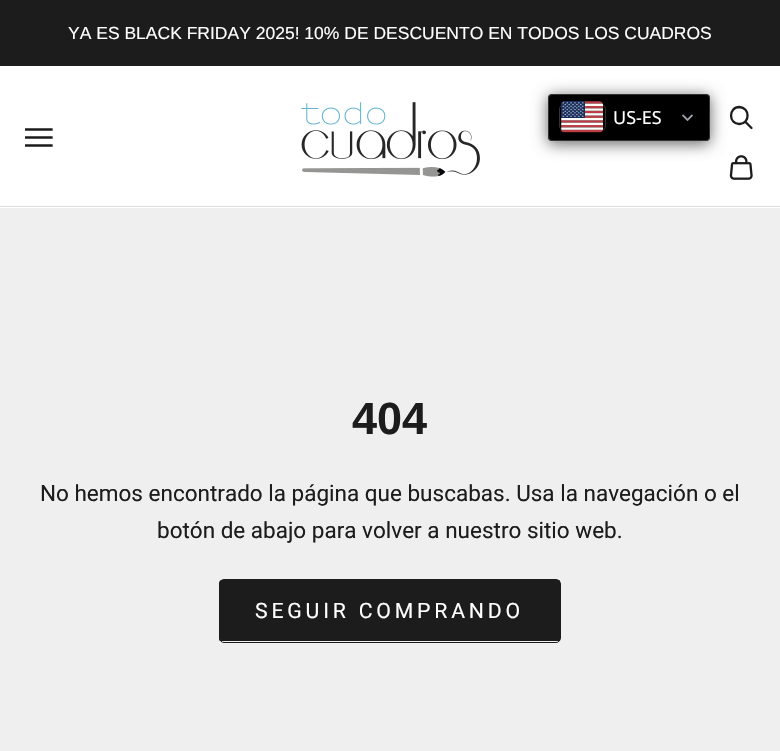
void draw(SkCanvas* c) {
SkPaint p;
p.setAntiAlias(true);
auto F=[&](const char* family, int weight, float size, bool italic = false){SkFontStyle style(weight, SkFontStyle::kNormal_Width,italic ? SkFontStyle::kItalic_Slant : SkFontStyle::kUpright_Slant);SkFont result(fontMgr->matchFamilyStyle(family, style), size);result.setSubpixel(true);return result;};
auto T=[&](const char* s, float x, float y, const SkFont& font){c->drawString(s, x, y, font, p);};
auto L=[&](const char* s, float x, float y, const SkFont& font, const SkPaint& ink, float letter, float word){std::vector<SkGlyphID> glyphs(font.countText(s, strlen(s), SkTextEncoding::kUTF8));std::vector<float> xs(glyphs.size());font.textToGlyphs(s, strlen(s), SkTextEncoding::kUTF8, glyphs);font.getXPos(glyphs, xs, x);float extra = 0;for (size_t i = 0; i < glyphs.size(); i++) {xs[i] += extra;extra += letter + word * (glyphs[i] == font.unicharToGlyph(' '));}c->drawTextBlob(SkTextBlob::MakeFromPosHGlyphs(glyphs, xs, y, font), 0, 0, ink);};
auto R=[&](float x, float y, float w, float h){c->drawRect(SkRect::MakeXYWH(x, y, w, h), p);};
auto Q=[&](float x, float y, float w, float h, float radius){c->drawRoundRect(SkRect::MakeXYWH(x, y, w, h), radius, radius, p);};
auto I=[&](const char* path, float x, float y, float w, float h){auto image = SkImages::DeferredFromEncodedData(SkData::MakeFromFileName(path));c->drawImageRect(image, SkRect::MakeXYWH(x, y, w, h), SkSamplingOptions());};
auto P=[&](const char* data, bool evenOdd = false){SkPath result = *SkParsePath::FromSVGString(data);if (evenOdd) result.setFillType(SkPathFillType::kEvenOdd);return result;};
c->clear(0xffefefef);
p.setColor(0xff1c1c1c);
R(0,0,780,66);
auto f1 = F("Liberation Sans",400,17.5);
p.setColor(0xffffffff);
T("YA ES BLACK FRIDAY 2025! 10% DE DESCUENTO EN TODOS LOS CUADROS",68,39,f1);
R(0,66,780,142);
p.setColor(0xffdddddd);
R(0,206,780,1);
I("1.png",301,102,179,75);
p.setStroke(true);
p.setStrokeWidth(2.3);
p.setColor(0xff1c1c1c);
c->drawPath(P("M739.5 107c-11.5 0-11 17.5 0 17c11-.5 10.5-16.5 0-17z"),p);
I("4.png",729,155,24,25);
p.setStroke(false);
p.setColor(0x99000000);
p.setMaskFilter(SkMaskFilter::MakeBlur(kNormal_SkBlurStyle, 7.5));
c->drawRoundRect(SkRect::MakeXYWH(548,96,162,48),4,4,p);
p.setMaskFilter(nullptr);
p.setColor(0xff000000);
Q(548,94,162,47,4);
p.setStroke(true);
p.setStrokeWidth(1);
p.setColor(0x33ffffff);
c->drawRoundRect(SkRect::MakeXYWH(548.5,94.5,161,46),3.5,3.5,p);
p.setColor(0xff333333);
c->drawRoundRect(SkRect::MakeXYWH(559.5,104.5,46,26),4.5,4.5,p);
I("2.png",561,101,42,32);
auto f2 = F("Noto Sans",400,18);
p.setStroke(false);
p.setColor(0xffffffff);
T("US-ES",613,124,f2);
I("3.png",682,114,11,8);
p.setStroke(true);
p.setStrokeWidth(2.3);
p.setStrokeCap(SkPaint::kRound_Cap);
p.setColor(0xff1c1c1c);
c->drawPath(P("M745.5 122l6 6"),p);
c->save();
c->clipRect(SkRect::MakeXYWH(25,124,28,27));
p.setStrokeCap(SkPaint::kSquare_Cap);
c->drawPath(P("M26 145.5h25.5m-25.5-8h25.5m-25.5-8h25.5"),p);
c->restore();
auto f3 = F("Liberation Sans",700,45);
p.setStroke(false);
T("404",352,434,f3);
auto f4 = F("Roboto",400,22.5);
T("No hemos encontrado la página que buscabas. Usa la navegación o el",40,501,f4);
T("botón de abajo para volver a nuestro sitio web.",157,538,f4);
c->save();
c->clipPath(P("M224 579h332c3 0 5 2 5 5v54c0 3-2 5-5 5h-332c-3 0-5-2-5-5v-54c0-3 2-5 5-5z"),true);
R(219,580,341,61);
c->restore();
p.setStroke(true);
p.setStrokeWidth(1);
p.setStrokeCap(SkPaint::kButt_Cap);
c->drawRoundRect(SkRect::MakeXYWH(219.5,579.5,341,63),4.5,4.5,p);
auto f5 = F("Roboto",400,21.25);
p.setStroke(false);
p.setColor(0xffffffff);
L("SEGUIR COMPRANDO",255,618,f5,p,3.8,0);
}
